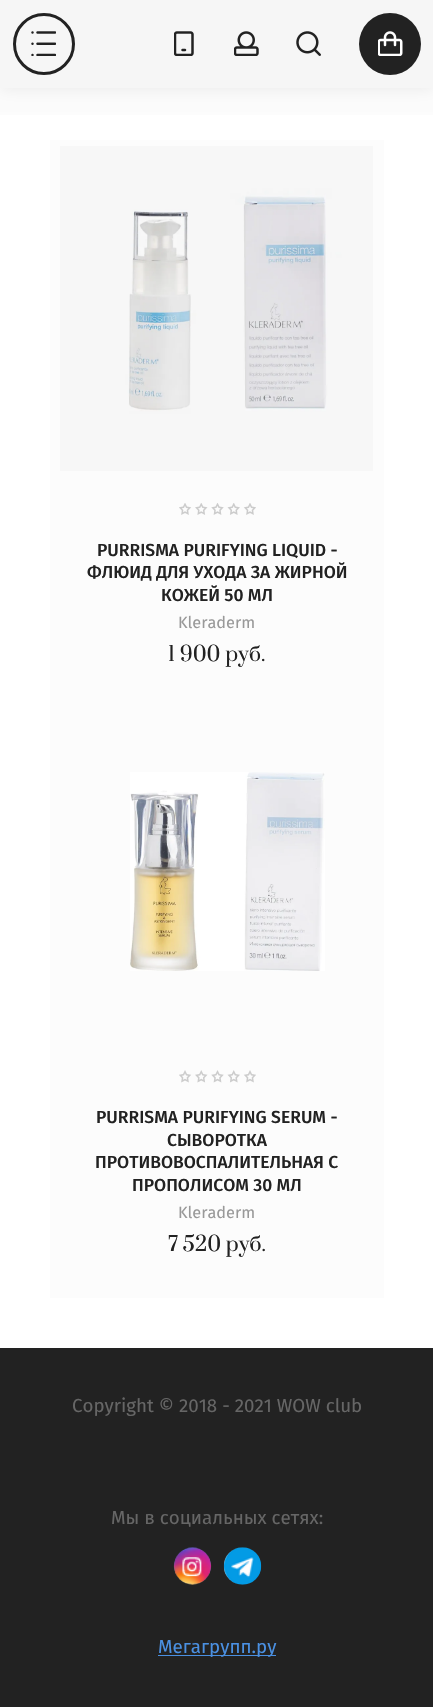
void draw(SkCanvas* c) {
SkPaint p;
p.setAntiAlias(true);
auto F=[&](const char* family, int weight, float size, bool italic = false){SkFontStyle style(weight, SkFontStyle::kNormal_Width,italic ? SkFontStyle::kItalic_Slant : SkFontStyle::kUpright_Slant);SkFont result(fontMgr->matchFamilyStyle(family, style), size);result.setSubpixel(true);return result;};
auto T=[&](const char* s, float x, float y, const SkFont& font){c->drawString(s, x, y, font, p);};
auto R=[&](float x, float y, float w, float h){c->drawRect(SkRect::MakeXYWH(x, y, w, h), p);};
auto I=[&](const char* path, float x, float y, float w, float h){auto image = SkImages::DeferredFromEncodedData(SkData::MakeFromFileName(path));c->drawImageRect(image, SkRect::MakeXYWH(x, y, w, h), SkSamplingOptions());};
c->clear(0xffffffff);
p.setColor(0xfffcfcfc);
R(0,88,433,27);
p.setColor(0x14000000);
p.setMaskFilter(SkMaskFilter::MakeBlur(kNormal_SkBlurStyle, 8));
c->drawRect(SkRect::MakeXYWH(0,0,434,88),p);
p.setMaskFilter(nullptr);
p.setColor(0xfff6f6f6);
R(0,0,433,88);
p.setStroke(true);
p.setStrokeWidth(3);
p.setColor(0xff222222);
c->drawCircle(44,44,29.5,p);
I("1.png",31,31,25,25);
I("2.png",174,31,20,25);
I("3.png",234,31,25,25);
I("4.png",296,31,25,25);
p.setStroke(false);
c->drawCircle(390,44,31,p);
I("5.png",378,31,25,25);
p.setColor(0xfffcfcfc);
R(50,140,334,1158);
I("6.png",60,146,313,325);
I("7.png",179,503,77,12);
auto f1 = F("Fira Sans",500,17.5);
p.setColor(0xff222222);
T("PURRISMA PURIFYING LIQUID -",97,556,f1);
T("ФЛЮИД ДЛЯ УХОДА ЗА ЖИРНОЙ",87,578,f1);
T("КОЖЕЙ 50 МЛ",161,601,f1);
auto f2 = F("Fira Sans",400,16.25);
p.setColor(0xff999999);
T("Kleraderm",178,628,f2);
auto f3 = F("Prata",400,20);
p.setColor(0xff222222);
T("1 900 руб.",168,661,f3);
I("8.png",130,772,195,199);
I("9.png",179,1070,77,13);
T("PURRISMA PURIFYING SERUM -",96,1123,f1);
T("СЫВОРОТКА",167,1146,f1);
T("ПРОТИВОВОСПАЛИТЕЛЬНАЯ С",95,1168,f1);
T("ПРОПОЛИСОМ 30 МЛ",132,1191,f1);
p.setColor(0xff999999);
T("Kleraderm",178,1218,f2);
p.setColor(0xff222222);
T("7 520 руб.",168,1251,f3);
R(0,1348,433,359);
auto f4 = F("Fira Sans",400,18.75);
p.setColor(0xff666666);
T("Copyright © 2018 - 2021 WOW club",72,1412,f4);
T("Мы в социальных сетях:",111,1524,f4);
I("10.png",173,1547,39,38);
I("11.png",223,1547,39,38);
p.setColor(0xff4a90e2);
R(158,1655,118,1);
T("Мегагрупп.ру",158,1653,f4);
}
